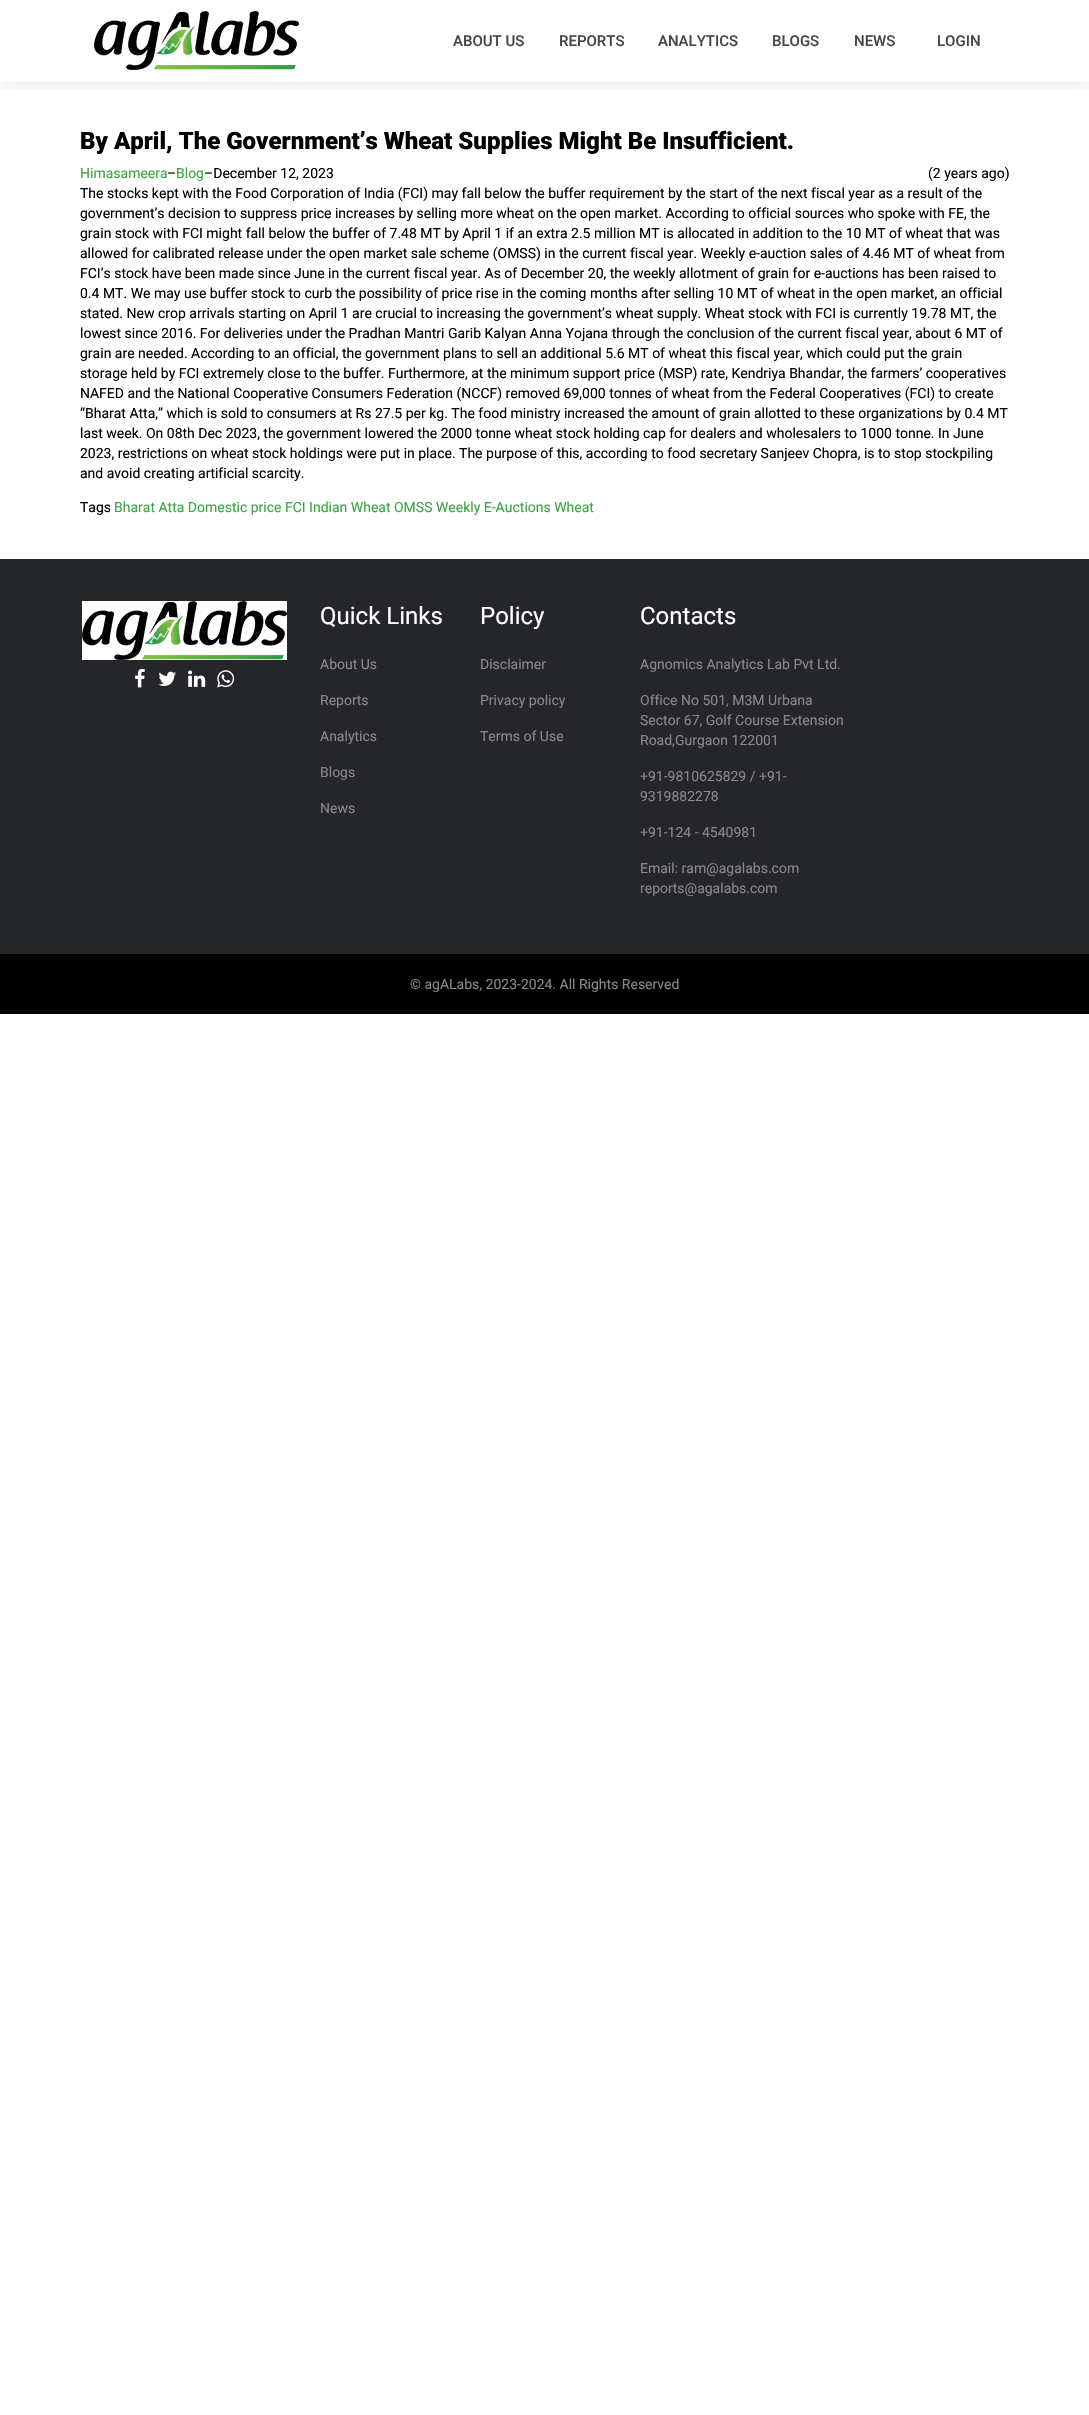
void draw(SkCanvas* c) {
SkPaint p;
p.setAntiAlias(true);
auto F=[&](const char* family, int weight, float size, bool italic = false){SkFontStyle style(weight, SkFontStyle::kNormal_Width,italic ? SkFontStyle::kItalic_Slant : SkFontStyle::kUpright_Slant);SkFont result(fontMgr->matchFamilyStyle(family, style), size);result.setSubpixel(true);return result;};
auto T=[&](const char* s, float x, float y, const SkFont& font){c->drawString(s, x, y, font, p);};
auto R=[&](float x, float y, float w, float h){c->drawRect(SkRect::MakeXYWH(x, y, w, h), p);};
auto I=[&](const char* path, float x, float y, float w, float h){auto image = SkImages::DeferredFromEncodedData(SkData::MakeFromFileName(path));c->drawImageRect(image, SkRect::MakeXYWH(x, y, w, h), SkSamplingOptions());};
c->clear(0xffffffff);
c->save();
c->clipRect(SkRect::MakeXYWH(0,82,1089,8));
p.setColor(0x33000000);
p.setMaskFilter(SkMaskFilter::MakeBlur(kNormal_SkBlurStyle, 10));
c->drawRect(SkRect::MakeXYWH(0,-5,1089,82),p);
p.setMaskFilter(nullptr);
c->restore();
I("1.png",94,11,205,59);
auto f1 = F("Roboto",500,15);
p.setColor(0xff454545);
T("ABOUT US",453,46,f1);
T("REPORTS",559,46,f1);
T("ANALYTICS",658,46,f1);
T("BLOGS",772,46,f1);
T("NEWS",854,46,f1);
T("LOGIN",937,46,f1);
auto f2 = F("Roboto",900,24);
p.setColor(0xff000000);
T("By April, The Government’s Wheat Supplies Might Be Insufficient.",80,149,f2);
auto f3 = F("Roboto",400,14);
p.setColor(0xff3ca443);
T("Himasameera",80,178,f3);
p.setColor(0xff000000);
T("–",167,178,f3);
p.setColor(0xff3ca443);
T("Blog",176,178,f3);
p.setColor(0xff000000);
T("–December 12, 2023",204,178,f3);
T("(2 years ago)",928,178,f3);
T("The stocks kept with the Food Corporation of India (FCI) may fall below the buffer requirement by the start of the next fiscal year as a result of the",80,198,f3);
T("government’s decision to suppress price increases by selling more wheat on the open market. According to official sources who spoke with FE, the",80,218,f3);
T("grain stock with FCI might fall below the buffer of 7.48 MT by April 1 if an extra 2.5 million MT is allocated in addition to the 10 MT of wheat that was",80,238,f3);
T("allowed for calibrated release under the open market sale scheme (OMSS) in the current fiscal year. Weekly e-auction sales of 4.46 MT of wheat from",80,258,f3);
T("FCI’s stock have been made since June in the current fiscal year. As of December 20, the weekly allotment of grain for e-auctions has been raised to",80,278,f3);
T("0.4 MT. We may use buffer stock to curb the possibility of price rise in the coming months after selling 10 MT of wheat in the open market, an official",80,298,f3);
T("stated. New crop arrivals starting on April 1 are crucial to increasing the government’s wheat supply. Wheat stock with FCI is currently 19.78 MT, the",80,318,f3);
T("lowest since 2016. For deliveries under the Pradhan Mantri Garib Kalyan Anna Yojana through the conclusion of the current fiscal year, about 6 MT of",80,338,f3);
T("grain are needed. According to an official, the government plans to sell an additional 5.6 MT of wheat this fiscal year, which could put the grain",80,358,f3);
T("storage held by FCI extremely close to the buffer. Furthermore, at the minimum support price (MSP) rate, Kendriya Bhandar, the farmers’ cooperatives",80,378,f3);
T("NAFED and the National Cooperative Consumers Federation (NCCF) removed 69,000 tonnes of wheat from the Federal Cooperatives (FCI) to create",80,398,f3);
T("“Bharat Atta,” which is sold to consumers at Rs 27.5 per kg. The food ministry increased the amount of grain allotted to these organizations by 0.4 MT",80,418,f3);
T("last week. On 08th Dec 2023, the government lowered the 2000 tonne wheat stock holding cap for dealers and wholesalers to 1000 tonne. In June",80,438,f3);
T("2023, restrictions on wheat stock holdings were put in place. The purpose of this, according to food secretary Sanjeev Chopra, is to stop stockpiling",80,458,f3);
T("and avoid creating artificial scarcity.",80,478,f3);
T("Tags",80,512,f3);
p.setColor(0xff3ca443);
T("Bharat Atta Domestic price FCI Indian Wheat OMSS Weekly E-Auctions Wheat",114,512,f3);
p.setColor(0xff25262a);
R(0,559,1089,395);
p.setColor(0xffffffff);
R(82,601,205,59);
I("1.png",82,601,205,59);
I("2.png",135,668,10,20);
I("3.png",158,671,18,15);
I("4.png",188,670,18,17);
I("5.png",217,670,18,18);
auto f4 = F("Roboto",400,24);
T("Quick Links",320,624,f4);
p.setColor(0xff898989);
T("About Us",320,669,f3);
T("Reports",320,705,f3);
T("Analytics",320,741,f3);
T("Blogs",320,777,f3);
T("News",320,813,f3);
p.setColor(0xffffffff);
T("Policy",480,624,f4);
p.setColor(0xff898989);
T("Disclaimer",480,669,f3);
T("Privacy policy",480,705,f3);
T("Terms of Use",480,741,f3);
p.setColor(0xffffffff);
T("Contacts",640,624,f4);
p.setColor(0xff898989);
T("Agnomics Analytics Lab Pvt Ltd.",640,669,f3);
T("Office No 501, M3M Urbana",640,705,f3);
T("Sector 67, Golf Course Extension",640,725,f3);
T("Road,Gurgaon 122001",640,745,f3);
T("+91-9810625829 / +91-",640,781,f3);
T("9319882278",640,801,f3);
T("+91-124 - 4540981",640,837,f3);
T("Email: ram@agalabs.com",640,873,f3);
T("reports@agalabs.com",640,893,f3);
p.setColor(0xff000000);
R(0,954,1089,60);
p.setColor(0xff898989);
T("© agALabs, 2023-2024. All Rights Reserved",410,989,f3);
}
